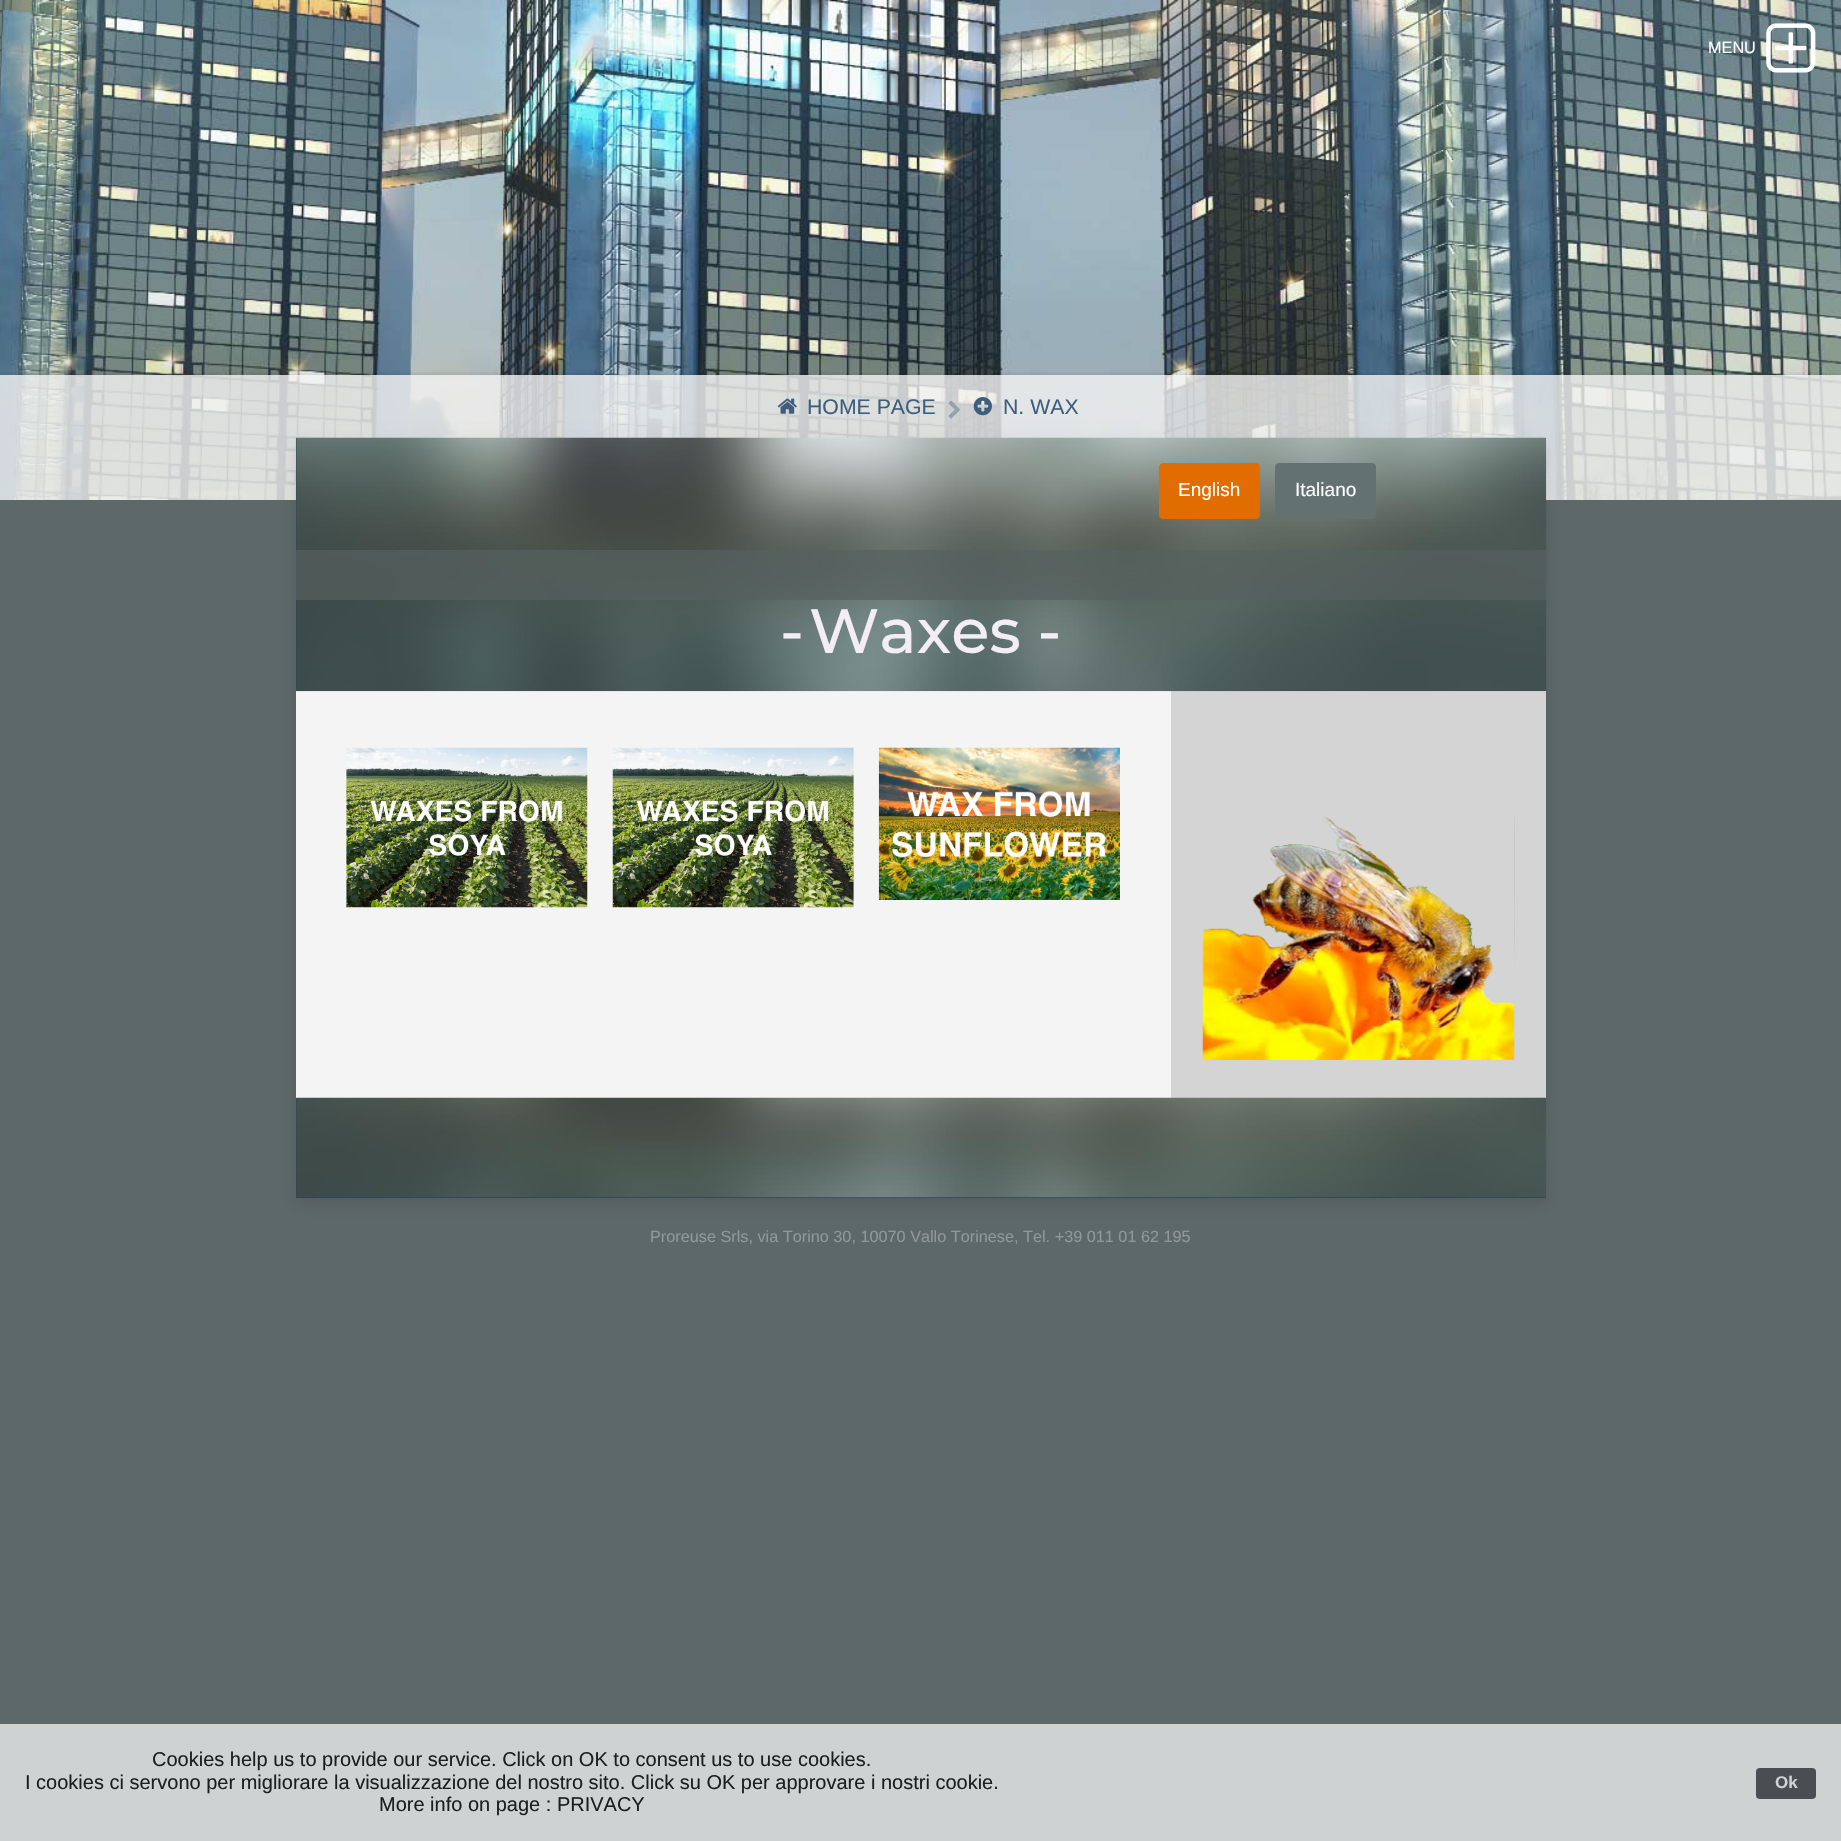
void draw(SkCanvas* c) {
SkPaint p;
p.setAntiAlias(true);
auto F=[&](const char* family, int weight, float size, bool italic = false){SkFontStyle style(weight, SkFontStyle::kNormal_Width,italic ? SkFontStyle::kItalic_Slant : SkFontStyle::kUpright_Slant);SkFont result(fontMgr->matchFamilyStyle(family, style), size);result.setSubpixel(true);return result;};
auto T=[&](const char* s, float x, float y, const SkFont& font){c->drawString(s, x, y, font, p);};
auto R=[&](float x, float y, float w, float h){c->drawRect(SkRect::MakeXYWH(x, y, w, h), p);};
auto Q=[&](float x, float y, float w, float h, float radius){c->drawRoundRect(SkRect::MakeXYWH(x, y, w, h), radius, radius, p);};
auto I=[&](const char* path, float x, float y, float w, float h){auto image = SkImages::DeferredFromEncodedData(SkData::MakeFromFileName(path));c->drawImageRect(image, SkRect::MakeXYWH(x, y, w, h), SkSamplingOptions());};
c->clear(0xff5d6868);
I("2.png",0,0,1841,500);
auto f1 = F("Liberation Sans",400,16.25);
p.setColor(0xffffffff);
T("MENU",1708,53,f1);
I("1.png",1766,23,50,50);
c->save();
c->clipRect(SkRect::MakeXYWH(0,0,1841,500));
c->clipRect(SkRect::MakeXYWH(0,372,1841,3));
p.setColor(0x4d000000);
p.setMaskFilter(SkMaskFilter::MakeBlur(kNormal_SkBlurStyle, 4));
c->drawRect(SkRect::MakeXYWH(0,378,1841,125),p);
p.setMaskFilter(nullptr);
c->restore();
p.setColor(0xccf4f4f4);
R(0,375,1841,125);
I("3.png",777,398,20,16);
auto f2 = F("Liberation Sans",400,21.25);
p.setColor(0xff3f5d7c);
T("HOME PAGE",807,414,f2);
I("4.png",948,400,12,19);
I("5.png",973,397,19,19);
T("N. WAX",1003,414,f2);
p.setColor(0x1c000000);
p.setMaskFilter(SkMaskFilter::MakeBlur(kNormal_SkBlurStyle, 7.5));
c->drawRect(SkRect::MakeXYWH(296,444,1250,760),p);
p.setMaskFilter(nullptr);
p.setColor(0xfff4f4f4);
R(296,691,875,407);
p.setColor(0xff2b4757);
R(296,438,1,253);
p.setColor(0xffd4d4d4);
R(1171,691,375,407);
I("6.png",296,437,1251,255);
p.setColor(0xffe16c00);
c->drawRoundRect(SkRect::MakeXYWH(1159.5,463.5,100,55),3.5,3.5,p);
p.setStroke(true);
p.setStrokeWidth(1);
c->drawRoundRect(SkRect::MakeXYWH(1159.5,463.5,100,55),3.5,3.5,p);
auto f3 = F("Liberation Sans",400,19);
p.setStroke(false);
p.setColor(0xffffffff);
T("English",1178,496,f3);
p.setColor(0xff637171);
c->drawRoundRect(SkRect::MakeXYWH(1275.5,463.5,100,55),3.5,3.5,p);
p.setStroke(true);
p.setColor(0xff627171);
c->drawRoundRect(SkRect::MakeXYWH(1275.5,463.5,100,55),3.5,3.5,p);
p.setStroke(false);
p.setColor(0xffffffff);
T("Italiano",1295,496,f3);
p.setColor(0xb0565f5e);
R(296,550,1250,50);
auto f4 = F("Montserrat",500,62.5);
p.setColor(0xfff3eef3);
T("-",780,653,f4);
T("Waxes -",809,653,f4);
I("7.png",346,747,242,161);
I("8.png",612,747,242,161);
I("9.png",878,747,242,153);
I("10.png",1202,816,313,244);
p.setColor(0xff2b4757);
R(296,1098,1250,100);
I("11.png",296,1097,1250,101);
p.setColor(0xff8e9998);
T("Proreuse Srls, via Torino 30, 10070 Vallo Torinese, Tel. +39 011 01 62 195",650,1242,f1);
p.setColor(0xffced2d2);
R(0,1724,1841,117);
auto f5 = F("Liberation Sans",400,20);
p.setColor(0xff1c1f1f);
T("Cookies help us to provide our service. Click on OK to consent us to use cookies.",152,1766,f5);
T("I cookies ci servono per migliorare la visualizzazione del nostro sito. Click su OK per approvare i nostri cookie.",25,1789,f5);
T("More info on page : PRIVACY",379,1811,f5);
p.setColor(0xff4a4d51);
Q(1756,1768,60,31,4);
auto f6 = F("Liberation Sans",700,17);
p.setColor(0xffced2d2);
T("Ok",1775,1788,f6);
}
